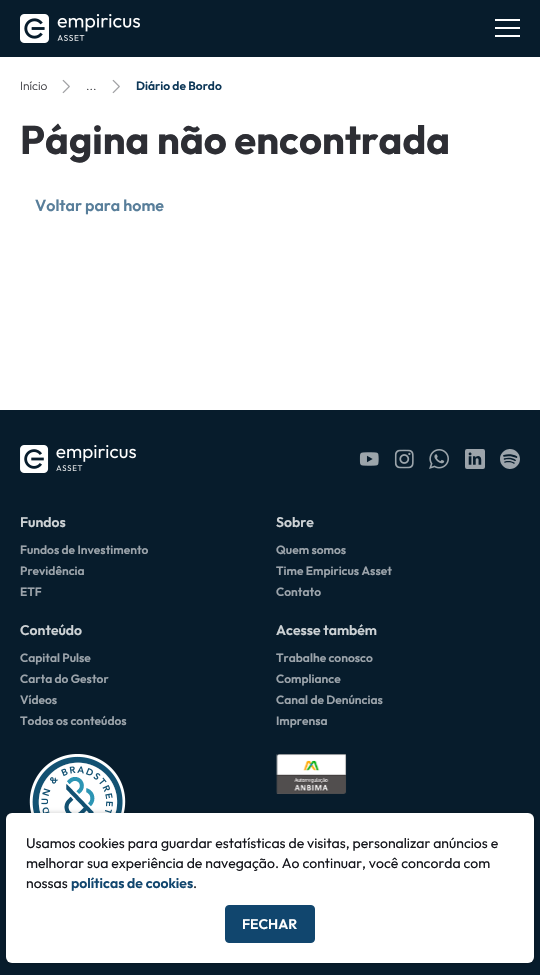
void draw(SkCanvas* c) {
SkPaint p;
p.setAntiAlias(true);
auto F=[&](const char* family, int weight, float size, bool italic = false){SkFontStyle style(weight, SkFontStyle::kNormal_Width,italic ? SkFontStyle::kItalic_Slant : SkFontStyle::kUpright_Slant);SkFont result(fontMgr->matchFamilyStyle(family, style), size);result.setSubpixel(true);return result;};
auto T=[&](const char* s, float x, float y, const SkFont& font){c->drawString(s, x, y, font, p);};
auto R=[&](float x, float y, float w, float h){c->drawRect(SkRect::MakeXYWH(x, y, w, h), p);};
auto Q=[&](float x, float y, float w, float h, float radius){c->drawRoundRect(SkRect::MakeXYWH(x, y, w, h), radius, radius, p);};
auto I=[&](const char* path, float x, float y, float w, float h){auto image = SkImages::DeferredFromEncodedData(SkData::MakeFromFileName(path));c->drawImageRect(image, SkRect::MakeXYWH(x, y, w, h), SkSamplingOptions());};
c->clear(0xffffffff);
p.setColor(0xff071c2c);
R(0,0,540,57);
I("1.png",20,14,120,29);
p.setColor(0xffffffff);
R(495,19,25,2);
R(495,27,25,2);
R(495,35,25,2);
auto f1 = F("Outfit",300,12);
p.setColor(0xff45454a);
T("Início",20,90,f1);
I("2.png",62,79,8,15);
T("...",86,90,f1);
I("2.png",112,79,8,15);
auto f2 = F("Outfit",600,12);
p.setColor(0xff0e3858);
T("Diário de Bordo",136,90,f2);
auto f3 = F("Outfit",700,40);
p.setColor(0xff2d2e34);
T("Página não encontrada",20,154,f3);
auto f4 = F("Outfit",600,16);
p.setColor(0xff587e9a);
T("Voltar para home",35,211,f4);
p.setColor(0xff071c2c);
R(0,410,540,565);
I("3.png",20,445,116,28);
I("4.png",359,452,20,14);
I("5.png",394,449,20,20);
I("6.png",429,449,20,20);
I("7.png",465,449,20,20);
I("8.png",500,449,20,20);
auto f5 = F("Outfit",600,14);
p.setColor(0xffcdd2d5);
T("Fundos",20,527,f5);
p.setColor(0xff9ca4ab);
T("Fundos de Investimento",20,554,f2);
T("Previdência",20,575,f2);
T("ETF",20,596,f2);
p.setColor(0xffcdd2d5);
T("Sobre",276,527,f5);
p.setColor(0xff9ca4ab);
T("Quem somos",276,554,f2);
T("Time Empiricus Asset",276,575,f2);
T("Contato",276,596,f2);
p.setColor(0xffcdd2d5);
T("Conteúdo",20,635,f5);
p.setColor(0xff9ca4ab);
T("Capital Pulse",20,662,f2);
T("Carta do Gestor",20,683,f2);
T("Vídeos",20,704,f2);
T("Todos os conteúdos",20,725,f2);
p.setColor(0xffcdd2d5);
T("Acesse também",276,635,f5);
p.setColor(0xff9ca4ab);
T("Trabalhe conosco",276,662,f2);
T("Compliance",276,683,f2);
T("Canal de Denúncias",276,704,f2);
T("Imprensa",276,725,f2);
I("9.png",29,754,97,59);
I("10.png",276,754,71,40);
p.setColor(0x33000000);
p.setMaskFilter(SkMaskFilter::MakeBlur(kNormal_SkBlurStyle, 2.5));
c->drawRoundRect(SkRect::MakeXYWH(6,813,528,150),6,6,p);
p.setMaskFilter(nullptr);
p.setColor(0xffffffff);
Q(6,813,528,150,6);
auto f6 = F("Outfit",400,14);
p.setColor(0xff16171d);
T("Usamos cookies para guardar estatísticas de visitas, personalizar anúncios e",26,848,f6);
T("melhorar sua experiência de navegação. Ao continuar, você concorda com",26,868,f6);
T("nossas",26,888,f6);
p.setColor(0xff11466e);
T("políticas de cookies",71,888,f5);
p.setColor(0xff16171d);
T(".",193,888,f6);
p.setColor(0xff11466e);
c->drawRoundRect(SkRect::MakeXYWH(225.5,905.5,89,37),3.5,3.5,p);
p.setStroke(true);
p.setStrokeWidth(1);
c->drawRoundRect(SkRect::MakeXYWH(225.5,905.5,89,37),3.5,3.5,p);
p.setStroke(false);
p.setColor(0xffffffff);
T("FECHAR",242,929,f5);
}
